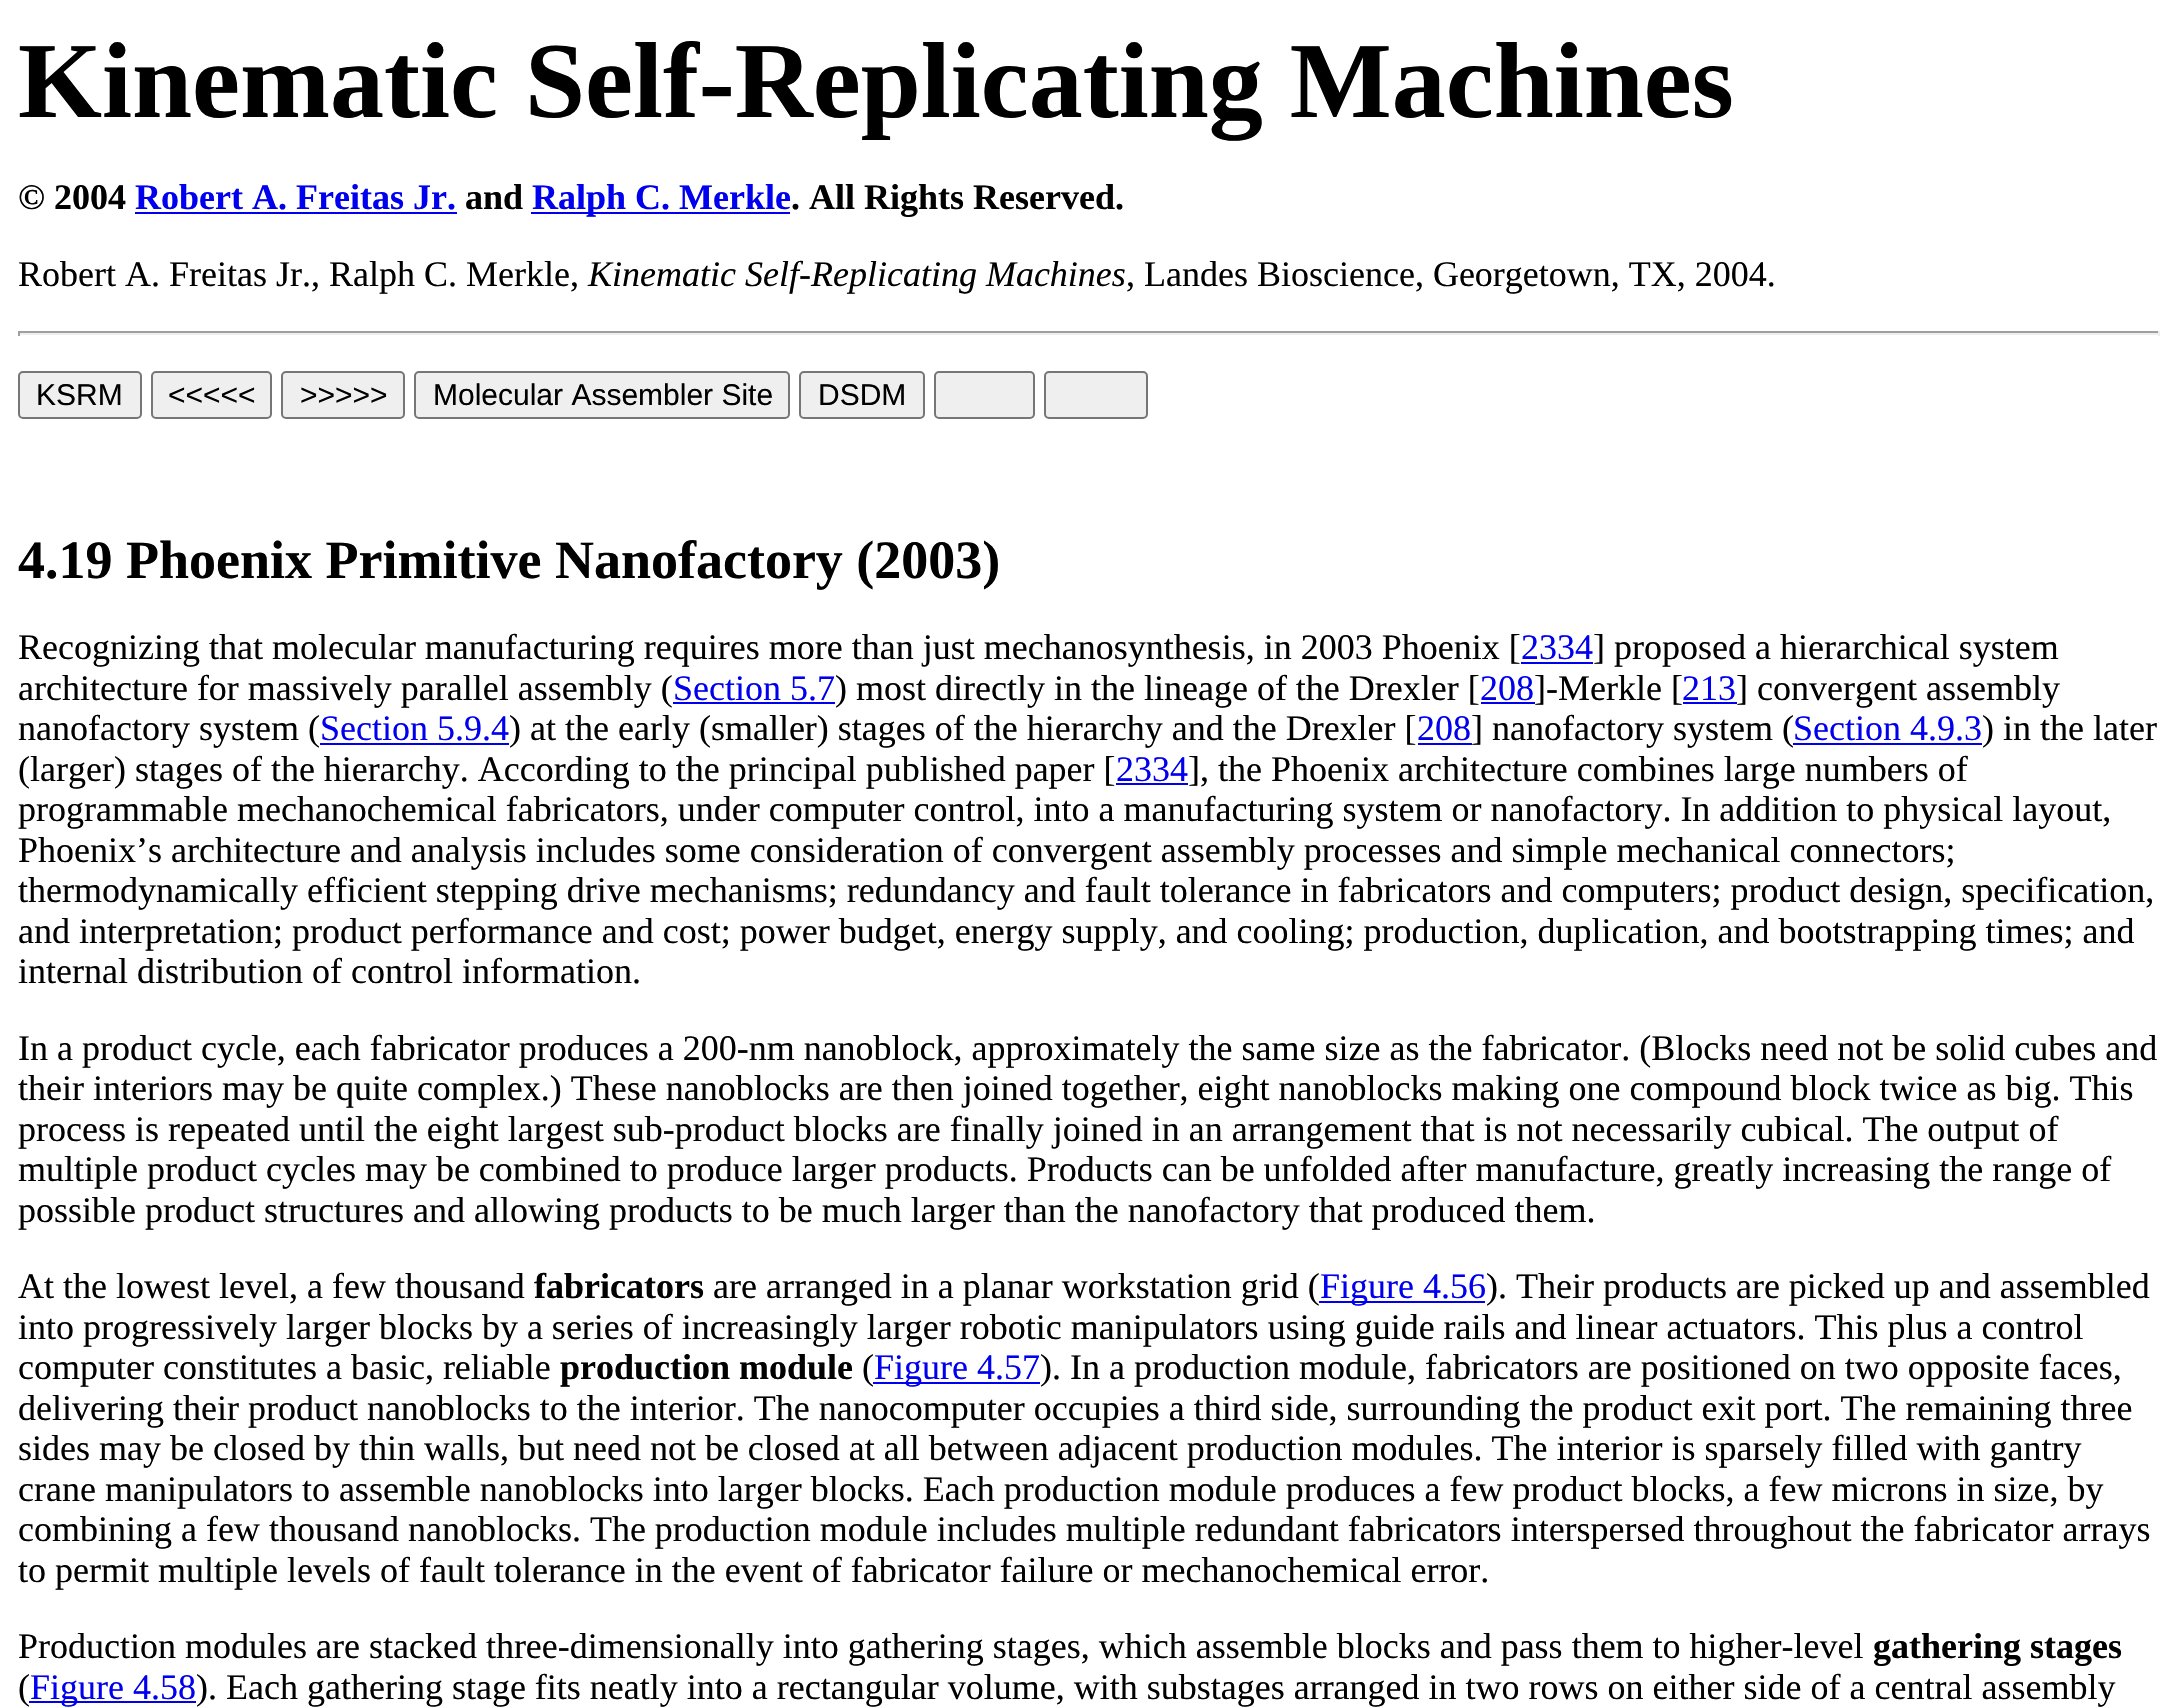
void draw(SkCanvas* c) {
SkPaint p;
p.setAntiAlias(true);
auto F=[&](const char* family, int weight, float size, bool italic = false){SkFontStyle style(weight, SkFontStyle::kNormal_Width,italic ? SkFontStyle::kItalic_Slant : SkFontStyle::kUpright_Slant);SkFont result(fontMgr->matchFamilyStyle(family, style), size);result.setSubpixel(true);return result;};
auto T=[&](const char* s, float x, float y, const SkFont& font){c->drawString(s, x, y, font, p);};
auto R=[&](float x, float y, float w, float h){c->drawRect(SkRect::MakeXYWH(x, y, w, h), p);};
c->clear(0xffffffff);
auto f1 = F("Liberation Serif",700,108);
p.setColor(0xff000000);
T("Kinematic Self-Replicating Machines",18,117,f1);
auto f2 = F("Liberation Serif",700,36);
T("© 2004",18,209,f2);
p.setColor(0xff0000ee);
T("Robert A. Freitas Jr.",135,209,f2);
R(135,212,322,2);
p.setColor(0xff000000);
T("and",465,209,f2);
p.setColor(0xff0000ee);
R(531,212,259,2);
T("Ralph C. Merkle",532,209,f2);
p.setColor(0xff000000);
T(". All Rights Reserved.",791,209,f2);
auto f3 = F("Liberation Serif",400,36);
T("Robert A. Freitas Jr., Ralph C. Merkle,",18,286,f3);
auto f4 = F("Liberation Serif",400,36,true);
T("Kinematic Self-Replicating Machines",588,286,f4);
T(", Landes Bioscience, Georgetown, TX, 2004.",1126,286,f3);
p.setColor(0xff9f9f9f);
R(18,331,2142,2);
p.setColor(0xffeeeeee);
R(2158,331,2,5);
R(18,333,2142,2);
p.setColor(0xff9f9f9f);
R(18,331,2,5);
p.setColor(0xffefefef);
c->drawRoundRect(SkRect::MakeXYWH(19,372,122,46),4,4,p);
p.setStroke(true);
p.setStrokeWidth(2);
p.setColor(0xff767676);
c->drawRoundRect(SkRect::MakeXYWH(19,372,122,46),4,4,p);
auto f5 = F("Liberation Sans",400,30);
p.setStroke(false);
p.setColor(0xff000000);
T("KSRM",36,405,f5);
p.setColor(0xffefefef);
c->drawRoundRect(SkRect::MakeXYWH(152,372,119,46),4,4,p);
p.setStroke(true);
p.setColor(0xff767676);
c->drawRoundRect(SkRect::MakeXYWH(152,372,119,46),4,4,p);
p.setStroke(false);
p.setColor(0xff000000);
T("<<<<<",168,405,f5);
p.setColor(0xffefefef);
c->drawRoundRect(SkRect::MakeXYWH(282,372,122,46),4,4,p);
p.setStroke(true);
p.setColor(0xff767676);
c->drawRoundRect(SkRect::MakeXYWH(282,372,122,46),4,4,p);
p.setStroke(false);
p.setColor(0xff000000);
T(">>>>>",300,405,f5);
p.setColor(0xffefefef);
c->drawRoundRect(SkRect::MakeXYWH(415,372,374,46),4,4,p);
p.setStroke(true);
p.setColor(0xff767676);
c->drawRoundRect(SkRect::MakeXYWH(415,372,374,46),4,4,p);
p.setStroke(false);
p.setColor(0xff000000);
T("Molecular Assembler Site",433,405,f5);
p.setColor(0xffefefef);
c->drawRoundRect(SkRect::MakeXYWH(800,372,124,46),4,4,p);
p.setStroke(true);
p.setColor(0xff767676);
c->drawRoundRect(SkRect::MakeXYWH(800,372,124,46),4,4,p);
p.setStroke(false);
p.setColor(0xff000000);
T("DSDM",818,405,f5);
p.setColor(0xffefefef);
c->drawRoundRect(SkRect::MakeXYWH(935,372,99,46),4,4,p);
p.setStroke(true);
p.setColor(0xff767676);
c->drawRoundRect(SkRect::MakeXYWH(935,372,99,46),4,4,p);
p.setStroke(false);
p.setColor(0xffefefef);
c->drawRoundRect(SkRect::MakeXYWH(1045,372,102,46),4,4,p);
p.setStroke(true);
p.setColor(0xff767676);
c->drawRoundRect(SkRect::MakeXYWH(1045,372,102,46),4,4,p);
auto f6 = F("Liberation Serif",700,54);
p.setStroke(false);
p.setColor(0xff000000);
T("4.19 Phoenix Primitive Nanofactory (2003)",18,578,f6);
T("Recognizing that molecular manufacturing requires more than just mechanosynthesis, in 2003 Phoenix [",18,659,f3);
p.setColor(0xff0000ee);
T("2334",1521,659,f3);
R(1521,662,72,2);
p.setColor(0xff000000);
T("] proposed a hierarchical system",1593,659,f3);
T("architecture for massively parallel assembly (",18,700,f3);
p.setColor(0xff0000ee);
T("Section 5.7",673,700,f3);
R(673,702,162,2);
p.setColor(0xff000000);
T(") most directly in the lineage of the Drexler [",835,700,f3);
p.setColor(0xff0000ee);
T("208",1480,700,f3);
R(1481,702,54,2);
p.setColor(0xff000000);
T("]-Merkle [",1534,700,f3);
p.setColor(0xff0000ee);
T("213",1682,700,f3);
R(1683,702,54,2);
p.setColor(0xff000000);
T("] convergent assembly",1736,700,f3);
T("nanofactory system (",18,740,f3);
p.setColor(0xff0000ee);
T("Section 5.9.4",320,740,f3);
R(320,743,189,2);
p.setColor(0xff000000);
T(") at the early (smaller) stages of the hierarchy and the Drexler [",509,740,f3);
p.setColor(0xff0000ee);
T("208",1417,740,f3);
R(1418,743,54,2);
p.setColor(0xff000000);
T("] nanofactory system (",1471,740,f3);
p.setColor(0xff0000ee);
T("Section 4.9.3",1793,740,f3);
R(1793,743,189,2);
p.setColor(0xff000000);
T(") in the later",1982,740,f3);
T("(larger) stages of the hierarchy. According to the principal published paper [",18,781,f3);
p.setColor(0xff0000ee);
T("2334",1116,781,f3);
R(1116,783,72,2);
p.setColor(0xff000000);
T("], the Phoenix architecture combines large numbers of",1188,781,f3);
T("programmable mechanochemical fabricators, under computer control, into a manufacturing system or nanofactory. In addition to physical layout,",18,821,f3);
T("Phoenix’s architecture and analysis includes some consideration of convergent assembly processes and simple mechanical connectors;",18,862,f3);
T("thermodynamically efficient stepping drive mechanisms; redundancy and fault tolerance in fabricators and computers; product design, specification,",18,902,f3);
T("and interpretation; product performance and cost; power budget, energy supply, and cooling; production, duplication, and bootstrapping times; and",18,943,f3);
T("internal distribution of control information.",18,983,f3);
T("In a product cycle, each fabricator produces a 200-nm nanoblock, approximately the same size as the fabricator. (Blocks need not be solid cubes and",18,1060,f3);
T("their interiors may be quite complex.) These nanoblocks are then joined together, eight nanoblocks making one compound block twice as big. This",18,1100,f3);
T("process is repeated until the eight largest sub-product blocks are finally joined in an arrangement that is not necessarily cubical. The output of",18,1141,f3);
T("multiple product cycles may be combined to produce larger products. Products can be unfolded after manufacture, greatly increasing the range of",18,1181,f3);
T("possible product structures and allowing products to be much larger than the nanofactory that produced them.",18,1222,f3);
T("At the lowest level, a few thousand",18,1298,f3);
T("fabricators",534,1298,f2);
T("are arranged in a planar workstation grid (",713,1298,f3);
p.setColor(0xff0000ee);
R(1319,1301,166,2);
T("Figure 4.56",1320,1298,f3);
p.setColor(0xff000000);
T("). Their products are picked up and assembled",1486,1298,f3);
T("into progressively larger blocks by a series of increasingly larger robotic manipulators using guide rails and linear actuators. This plus a control",18,1339,f3);
T("computer constitutes a basic, reliable",18,1379,f3);
T("production module",560,1379,f2);
T("(",862,1379,f3);
p.setColor(0xff0000ee);
R(873,1382,167,2);
T("Figure 4.57",874,1379,f3);
p.setColor(0xff000000);
T("). In a production module, fabricators are positioned on two opposite faces,",1040,1379,f3);
T("delivering their product nanoblocks to the interior. The nanocomputer occupies a third side, surrounding the product exit port. The remaining three",18,1420,f3);
T("sides may be closed by thin walls, but need not be closed at all between adjacent production modules. The interior is sparsely filled with gantry",18,1460,f3);
T("crane manipulators to assemble nanoblocks into larger blocks. Each production module produces a few product blocks, a few microns in size, by",18,1501,f3);
T("combining a few thousand nanoblocks. The production module includes multiple redundant fabricators interspersed throughout the fabricator arrays",18,1541,f3);
T("to permit multiple levels of fault tolerance in the event of fabricator failure or mechanochemical error.",18,1582,f3);
T("Production modules are stacked three-dimensionally into gathering stages, which assemble blocks and pass them to higher-level",18,1658,f3);
T("gathering stages",1873,1658,f2);
T("(",18,1699,f3);
p.setColor(0xff0000ee);
R(29,1701,167,2);
T("Figure 4.58",30,1699,f3);
p.setColor(0xff000000);
T("). Each gathering stage fits neatly into a rectangular volume, with substages arranged in two rows on either side of a central assembly",196,1699,f3);
}
